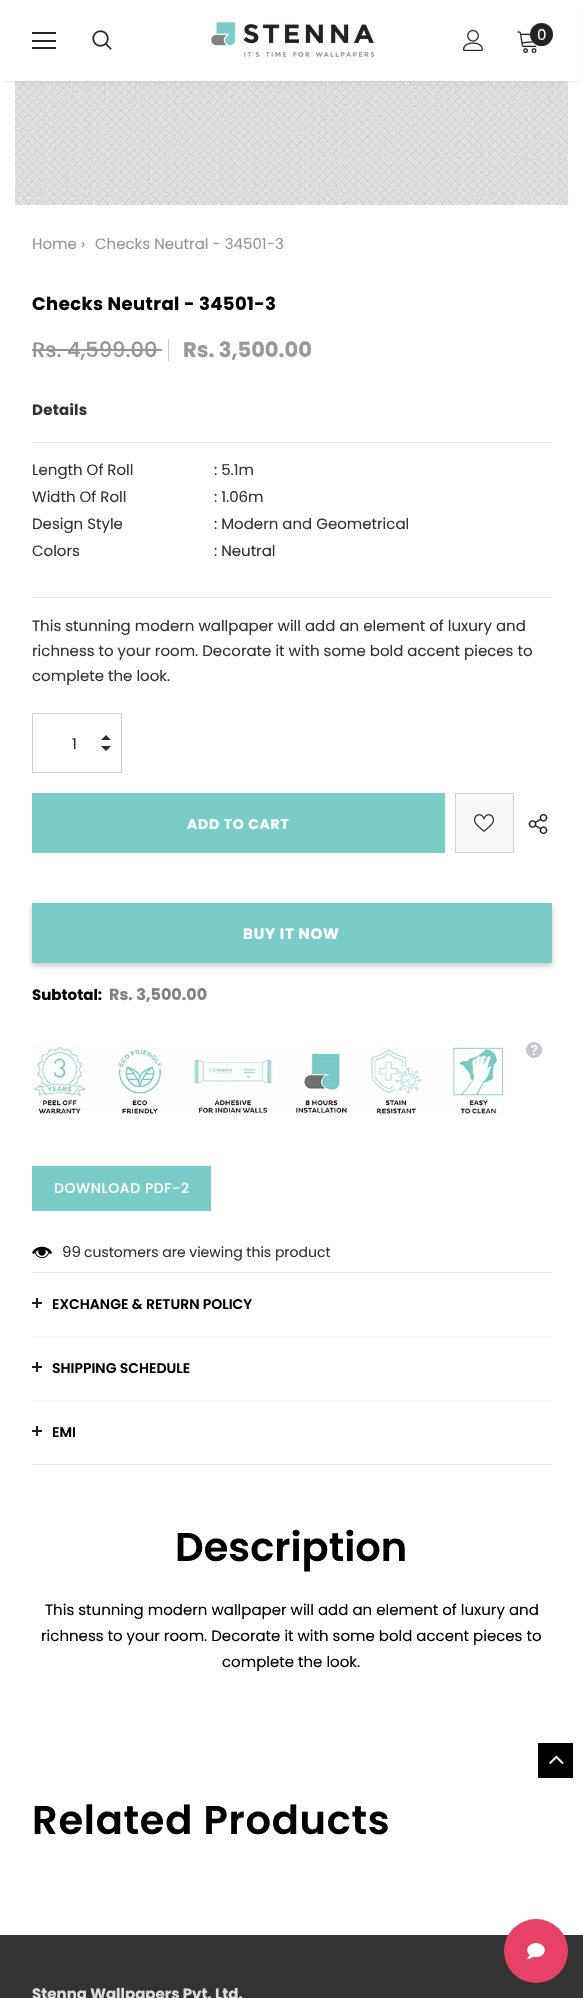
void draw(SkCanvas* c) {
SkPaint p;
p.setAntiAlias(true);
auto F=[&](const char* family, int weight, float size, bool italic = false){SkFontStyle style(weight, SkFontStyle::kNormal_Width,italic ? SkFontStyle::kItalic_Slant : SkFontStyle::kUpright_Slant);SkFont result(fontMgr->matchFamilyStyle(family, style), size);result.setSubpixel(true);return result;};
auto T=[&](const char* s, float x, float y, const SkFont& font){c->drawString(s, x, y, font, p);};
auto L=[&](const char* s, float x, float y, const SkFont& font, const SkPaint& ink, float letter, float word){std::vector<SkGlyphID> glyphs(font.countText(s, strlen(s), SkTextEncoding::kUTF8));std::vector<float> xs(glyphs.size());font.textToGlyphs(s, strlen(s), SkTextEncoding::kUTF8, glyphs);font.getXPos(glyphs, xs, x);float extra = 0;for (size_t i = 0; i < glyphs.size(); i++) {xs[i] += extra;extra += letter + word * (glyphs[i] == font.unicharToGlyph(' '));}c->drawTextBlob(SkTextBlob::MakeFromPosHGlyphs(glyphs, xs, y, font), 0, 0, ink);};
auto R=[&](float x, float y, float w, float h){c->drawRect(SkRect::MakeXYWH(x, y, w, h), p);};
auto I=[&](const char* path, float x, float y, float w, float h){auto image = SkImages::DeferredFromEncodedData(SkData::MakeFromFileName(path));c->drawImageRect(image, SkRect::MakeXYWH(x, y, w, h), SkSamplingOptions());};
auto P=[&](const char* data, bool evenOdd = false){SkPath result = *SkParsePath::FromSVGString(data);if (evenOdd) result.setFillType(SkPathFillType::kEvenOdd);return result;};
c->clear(0xffffffff);
I("5.png",15,81,553,124);
p.setColor(0x1f000000);
p.setMaskFilter(SkMaskFilter::MakeBlur(kNormal_SkBlurStyle, 1.5));
c->drawRect(SkRect::MakeXYWH(3,6,577,75),p);
p.setMaskFilter(nullptr);
p.setColor(0xffffffff);
R(1,4,581,77);
p.setColor(0xff232323);
R(32,32,24,2);
R(32,40,24,2);
R(32,47,24,2);
I("1.png",92,30,20,20);
I("2.png",211,22,164,35);
I("3.png",463,30,20,21);
I("4.png",517,31,20,22);
c->drawCircle(541.5,34.5,11.5,p);
auto f1 = F("Poppins",400,15);
p.setColor(0xffffffff);
T("0",537,40,f1);
p.setColor(0xff949494);
T("Home",32,249,f1);
T("›",81,249,f1);
T("Checks Neutral - 34501-3",95,249,f1);
auto f2 = F("Poppins",700,18);
p.setColor(0xff000000);
L("Checks Neutral - 34501-3",32,310,f2,p,.4,0);
auto f3 = F("Poppins",500,21);
p.setColor(0xff949494);
T("Rs. 4,599.00",32,357,f3);
p.setColor(0xff969696);
R(32,349,130,2);
p.setColor(0xffcccccc);
R(168,339,1,22);
auto f4 = F("Poppins",700,21);
p.setColor(0xff9a9898);
T("Rs. 3,500.00",183,357,f4);
auto f5 = F("Poppins",700,15);
p.setColor(0xff333333);
L("Details",32,415,f5,p,.25,0);
p.setColor(0xffe6e6e6);
R(32,442,520,1);
p.setColor(0xff333333);
T("Length Of Roll",32,475,f1);
T(": 5.1m",214,475,f1);
T("Width Of Roll",32,502,f1);
T(": 1.06m",214,502,f1);
T("Design Style",32,529,f1);
T(": Modern and Geometrical",214,529,f1);
T("Colors",32,556,f1);
T(": Neutral",214,556,f1);
p.setColor(0xffe6e6e6);
R(32,597,520,1);
p.setColor(0xff333333);
T("This stunning modern wallpaper will add an element of luxury and",32,631,f1);
T("richness to your room. Decorate it with some bold accent pieces to",32,656,f1);
T("complete the look.",32,681,f1);
p.setStroke(true);
p.setStrokeWidth(1);
p.setColor(0xffd0d0d0);
c->drawRect(SkRect::MakeXYWH(32.5,713.5,89,59),p);
p.setStroke(false);
p.setColor(0xff2d2d2d);
T("1",72,749,f1);
c->drawPath(P("M101 746h10l-5 5zm10-6h-10l5-5z"),p);
p.setColor(0xff7accc8);
R(32,793,413,60);
auto f6 = F("Poppins",700,14);
p.setColor(0xffffffff);
L("ADD TO CART",187,829,f6,p,.75,0);
p.setColor(0xfff8f8f8);
c->drawRect(SkRect::MakeXYWH(455.5,793.5,58,59),p);
p.setStroke(true);
p.setColor(0xffd0d0d0);
c->drawRect(SkRect::MakeXYWH(455.5,793.5,58,59),p);
I("6.png",474,814,20,18);
I("7.png",528,814,20,20);
p.setStroke(false);
p.setColor(0x33000000);
p.setMaskFilter(SkMaskFilter::MakeBlur(kNormal_SkBlurStyle, 2.5));
c->drawRect(SkRect::MakeXYWH(32,906,520,60),p);
p.setMaskFilter(nullptr);
p.setColor(0xff7accc8);
R(32,903,520,60);
p.setColor(0xffffffff);
L("BUY IT NOW",243,939,f5,p,.75,0);
p.setColor(0xff000000);
T("Subtotal:",32,1000,f5);
auto f7 = F("Poppins",700,16);
p.setColor(0xff808080);
T("Rs. 3,500.00",109,1000,f7);
I("8.png",32,1044,472,71);
I("9.png",526,1042,16,16);
p.setColor(0xff7accc8);
R(32,1166,179,45);
auto f8 = F("Poppins",500,14);
p.setColor(0xffffffff);
L("DOWNLOAD PDF-2",54,1193,f8,p,.6,0);
I("10.png",32,1246,20,13);
p.setColor(0xff333333);
T("99",62,1257,f1);
auto f9 = F("Poppins",400,14);
T("customers are viewing this product",84,1257,f9);
p.setColor(0xffe6e6e6);
R(32,1272,520,1);
R(32,1464,520,1);
p.setColor(0xff202020);
R(32,1302,10,2);
R(36,1298,2,10);
auto f10 = F("Poppins",600,14);
p.setColor(0xff000000);
T("EXCHANGE & RETURN POLICY",52,1309,f10);
p.setColor(0xfff6f6f6);
R(32,1336,520,1);
p.setColor(0xff202020);
R(32,1366,10,2);
R(36,1362,2,10);
p.setColor(0xff000000);
T("SHIPPING SCHEDULE",52,1373,f10);
p.setColor(0xfff6f6f6);
R(32,1400,520,1);
p.setColor(0xff202020);
R(32,1430,10,2);
R(36,1426,2,10);
p.setColor(0xff000000);
T("EMI",52,1437,f10);
auto f11 = F("Poppins",600,40);
T("Description",175,1561,f11);
T("This stunning modern wallpaper will add an element of luxury and",45,1615,f1);
T("richness to your room. Decorate it with some bold accent pieces to",41,1641,f1);
T("complete the look.",222,1667,f1);
L("Related Products",32,1834,f11,p,.75,0);
R(538,1743,35,35);
I("11.png",549,1755,15,9);
p.setColor(0xff333333);
R(0,1935,583,63);
p.setColor(0xffdddddd);
T("Stenna Wallpapers Pvt. Ltd.",32,1999,f5);
p.setColor(0xffe74266);
c->drawCircle(536,1951,32,p);
I("12.png",526,1943,19,16);
}
